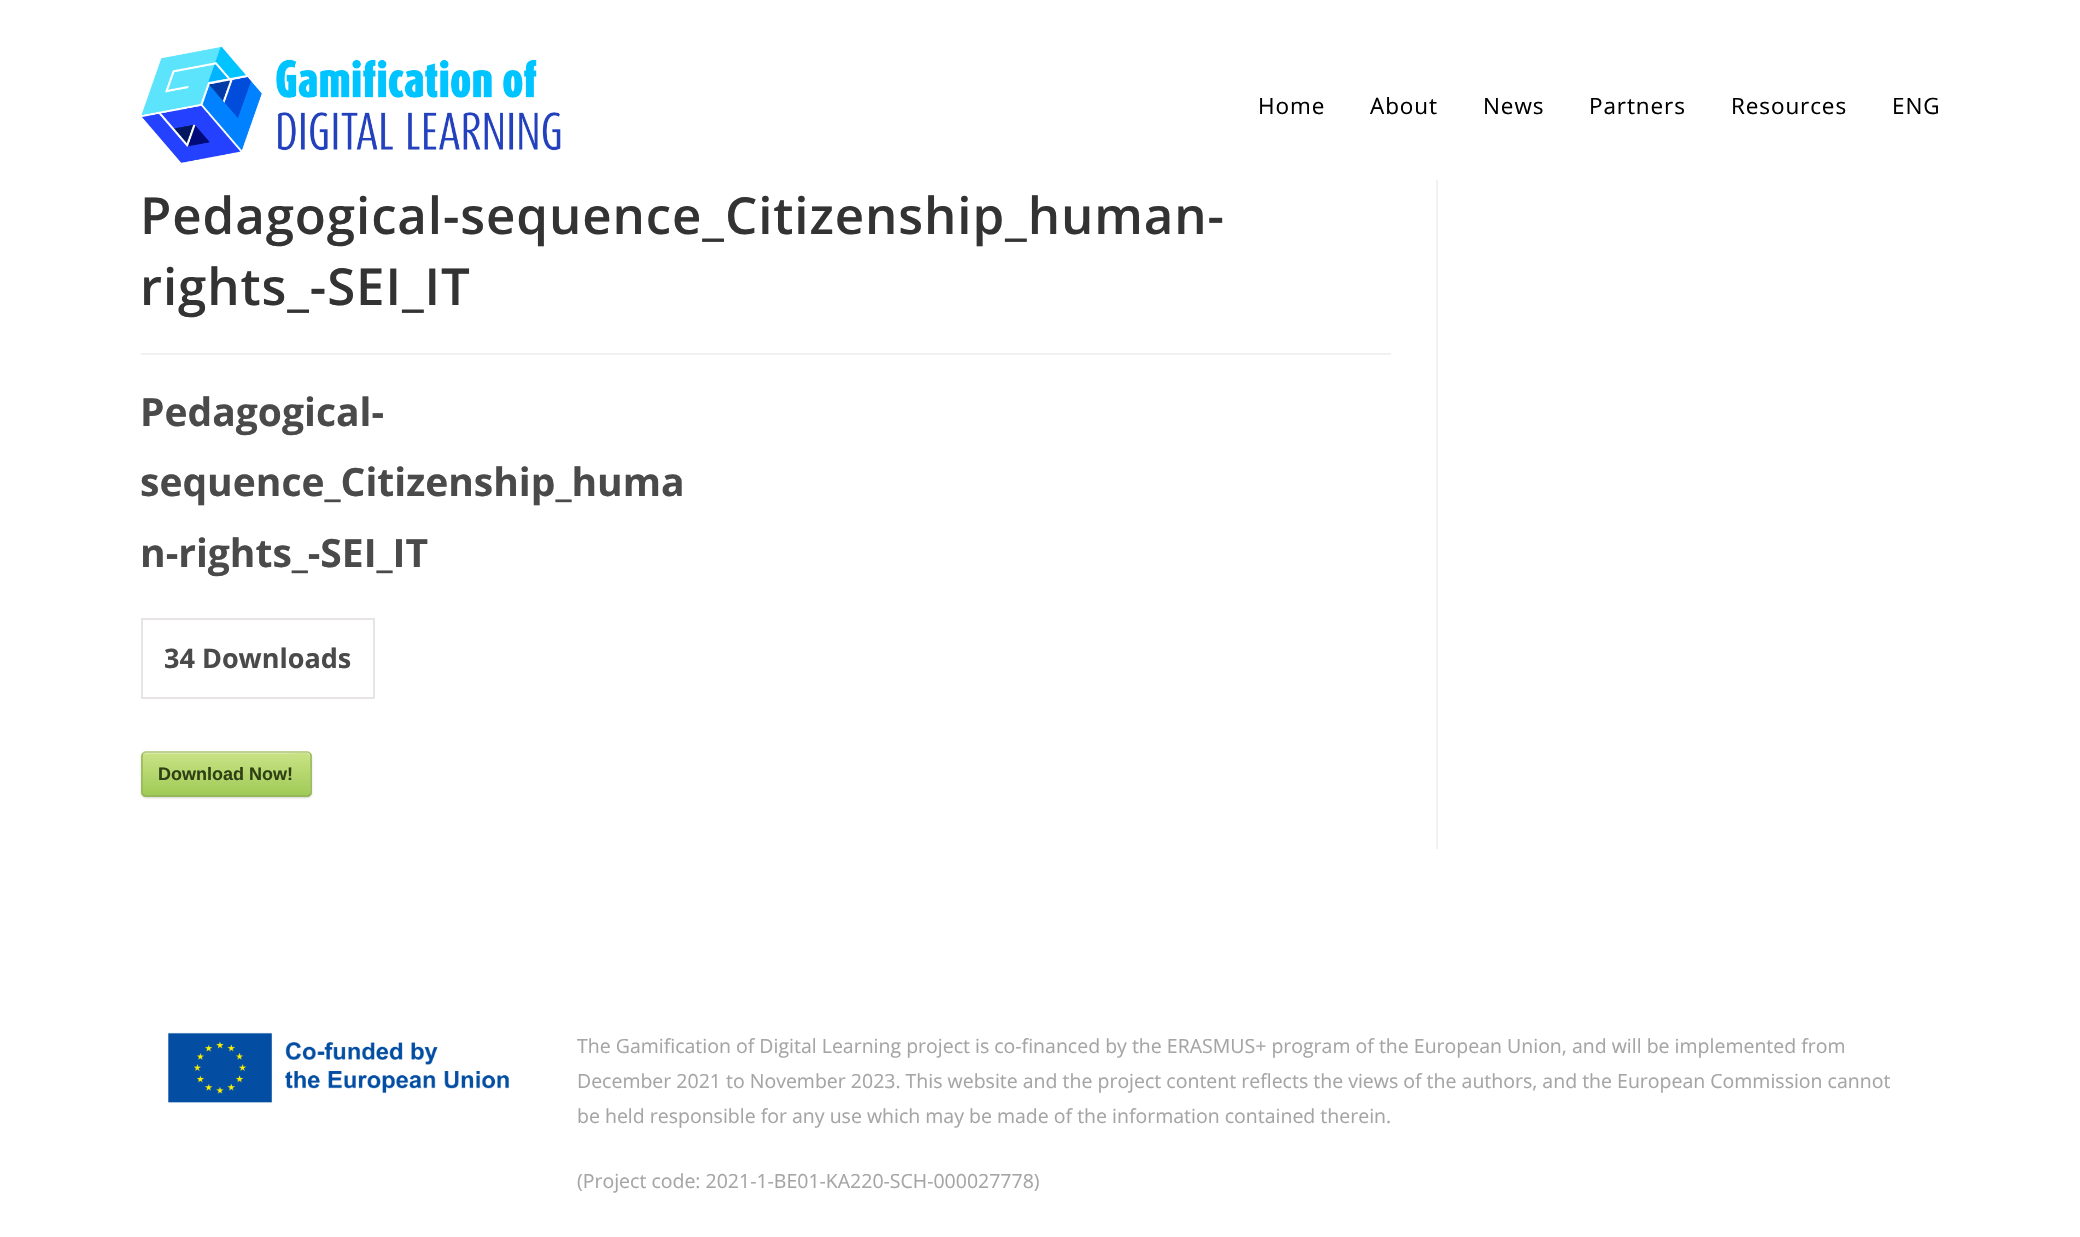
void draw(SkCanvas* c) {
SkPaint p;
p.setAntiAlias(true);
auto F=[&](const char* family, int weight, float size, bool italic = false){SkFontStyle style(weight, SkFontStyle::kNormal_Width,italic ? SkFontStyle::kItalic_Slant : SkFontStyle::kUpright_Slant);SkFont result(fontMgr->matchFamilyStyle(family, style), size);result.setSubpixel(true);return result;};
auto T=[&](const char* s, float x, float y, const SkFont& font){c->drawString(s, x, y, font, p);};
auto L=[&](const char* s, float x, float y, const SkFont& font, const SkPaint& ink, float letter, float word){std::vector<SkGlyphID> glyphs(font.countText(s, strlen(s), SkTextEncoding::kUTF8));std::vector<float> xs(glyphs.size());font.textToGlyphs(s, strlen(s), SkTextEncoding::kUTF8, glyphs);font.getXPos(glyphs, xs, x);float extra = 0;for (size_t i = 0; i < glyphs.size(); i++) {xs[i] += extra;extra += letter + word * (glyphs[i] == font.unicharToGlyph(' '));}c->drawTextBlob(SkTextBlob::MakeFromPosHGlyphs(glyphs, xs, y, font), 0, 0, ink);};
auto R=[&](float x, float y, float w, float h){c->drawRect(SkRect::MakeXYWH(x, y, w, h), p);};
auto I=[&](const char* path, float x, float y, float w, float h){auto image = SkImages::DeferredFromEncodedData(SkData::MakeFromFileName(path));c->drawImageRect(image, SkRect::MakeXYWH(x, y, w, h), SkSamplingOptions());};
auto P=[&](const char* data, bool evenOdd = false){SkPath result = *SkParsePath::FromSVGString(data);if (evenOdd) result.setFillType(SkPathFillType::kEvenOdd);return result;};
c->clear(0xffffffff);
I("1.png",141,46,420,117);
auto f1 = F("Open Sans",400,22.5);
p.setColor(0xff000000);
L("Home",1258,114,f1,p,.9,0);
L("About",1370,114,f1,p,.9,0);
L("News",1483,114,f1,p,.9,0);
L("Partners",1589,114,f1,p,.9,0);
L("Resources",1731,114,f1,p,.9,0);
L("ENG",1892,114,f1,p,.9,0);
p.setColor(0xfff1f1f1);
R(1436,180,2,669);
R(141,353,1250,2);
auto f2 = F("Open Sans",600,51);
p.setColor(0xff333333);
L("Pedagogical-sequence_Citizenship_human-",140,234,f2,p,.9,0);
L("rights_-SEI_IT",140,305,f2,p,.9,0);
auto f3 = F("Open Sans",700,39);
p.setColor(0xff4a4a4a);
T("Pedagogical-",140,426,f3);
T("sequence_Citizenship_huma",140,496,f3);
T("n-rights_-SEI_IT",140,567,f3);
p.setStroke(true);
p.setStrokeWidth(2);
p.setColor(0xffe8e4e3);
c->drawRect(SkRect::MakeXYWH(142,619,232,79),p);
auto f4 = F("Open Sans",700,27);
p.setStroke(false);
p.setColor(0xff4a4a4a);
T("34 Downloads",164,668,f4);
p.setColor(0xffd3d3d3);
p.setMaskFilter(SkMaskFilter::MakeBlur(kNormal_SkBlurStyle, 1));
c->drawRoundRect(SkRect::MakeXYWH(141,753,171,45),5,5,p);
p.setMaskFilter(nullptr);
c->save();
c->clipPath(P("M146 752h161c3 0 5 2 5 5v35c0 3-2 5-5 5h-161c-3 0-5-2-5-5v-35c0-3 2-5 5-5z"),true);
{
const SkColor colors[] = {0xffcae285,0xff9fcb57};
const float stops[] = {0,1};
const SkPoint ends[] = {{143,753}, {143,795}};
p.setShader(SkGradientShader::MakeLinear(ends, colors, stops, 2, SkTileMode::kClamp));
p.setAlpha(255);
}
R(141,753,171,42);
{
const SkColor colors[] = {0xffcae285,0xff9fcb57};
const float stops[] = {0,1};
const SkPoint ends[] = {{143,795}, {143,837}};
p.setShader(SkGradientShader::MakeLinear(ends, colors, stops, 2, SkTileMode::kClamp));
p.setAlpha(255);
}
R(141,795,171,2);
c->restore();
p.setShader(nullptr);
p.setColor(0xffd7e9a4);
c->drawPath(P("M146 754h135c31 0 29-7 29 16v24c1 0 1-1 1-2v-36c0-2-1-3-3-3h-162c-1 0-3 1-3 2z"),p);
p.setStroke(true);
p.setStrokeWidth(1.5);
p.setColor(0xffadc671);
c->drawPath(P("M143 753.5c.5-1 1.5-1.5 2.5-1.5h162c1 0 2 .5 2.5 1.5"),p);
p.setColor(0xff98b65b);
c->drawPath(P("M310 753.5c1 .5 1 1.5 1 2.5v36c0 1 0 2-1 2.5"),p);
p.setColor(0xff87aa4a);
c->drawPath(P("M310 794.5c-.5 1-1.5 1.5-2.5 1.5h-162c-1 0-2-.5-2.5-1.5"),p);
p.setColor(0xff98b65b);
c->drawPath(P("M143 794.5c-1-.5-1-1.5-1-2.5v-36c0-1 0-2 1-2.5"),p);
auto f5 = F("Liberation Sans",700,18);
p.setStroke(false);
p.setColor(0xff2f4014);
T("Download Now!",158,780,f5);
I("2.png",168,1032,342,71);
auto f6 = F("Open Sans",400,19.5);
p.setColor(0xffa5a5a5);
T("The Gamification of Digital Learning project is co-financed by the ERASMUS+ program of the European Union, and will be implemented from",577,1053,f6);
T("December 2021 to November 2023. This website and the project content reflects the views of the authors, and the European Commission cannot",577,1088,f6);
T("be held responsible for any use which may be made of the information contained therein.",577,1123,f6);
T("(Project code: 2021-1-BE01-KA220-SCH-000027778)",577,1188,f6);
}
